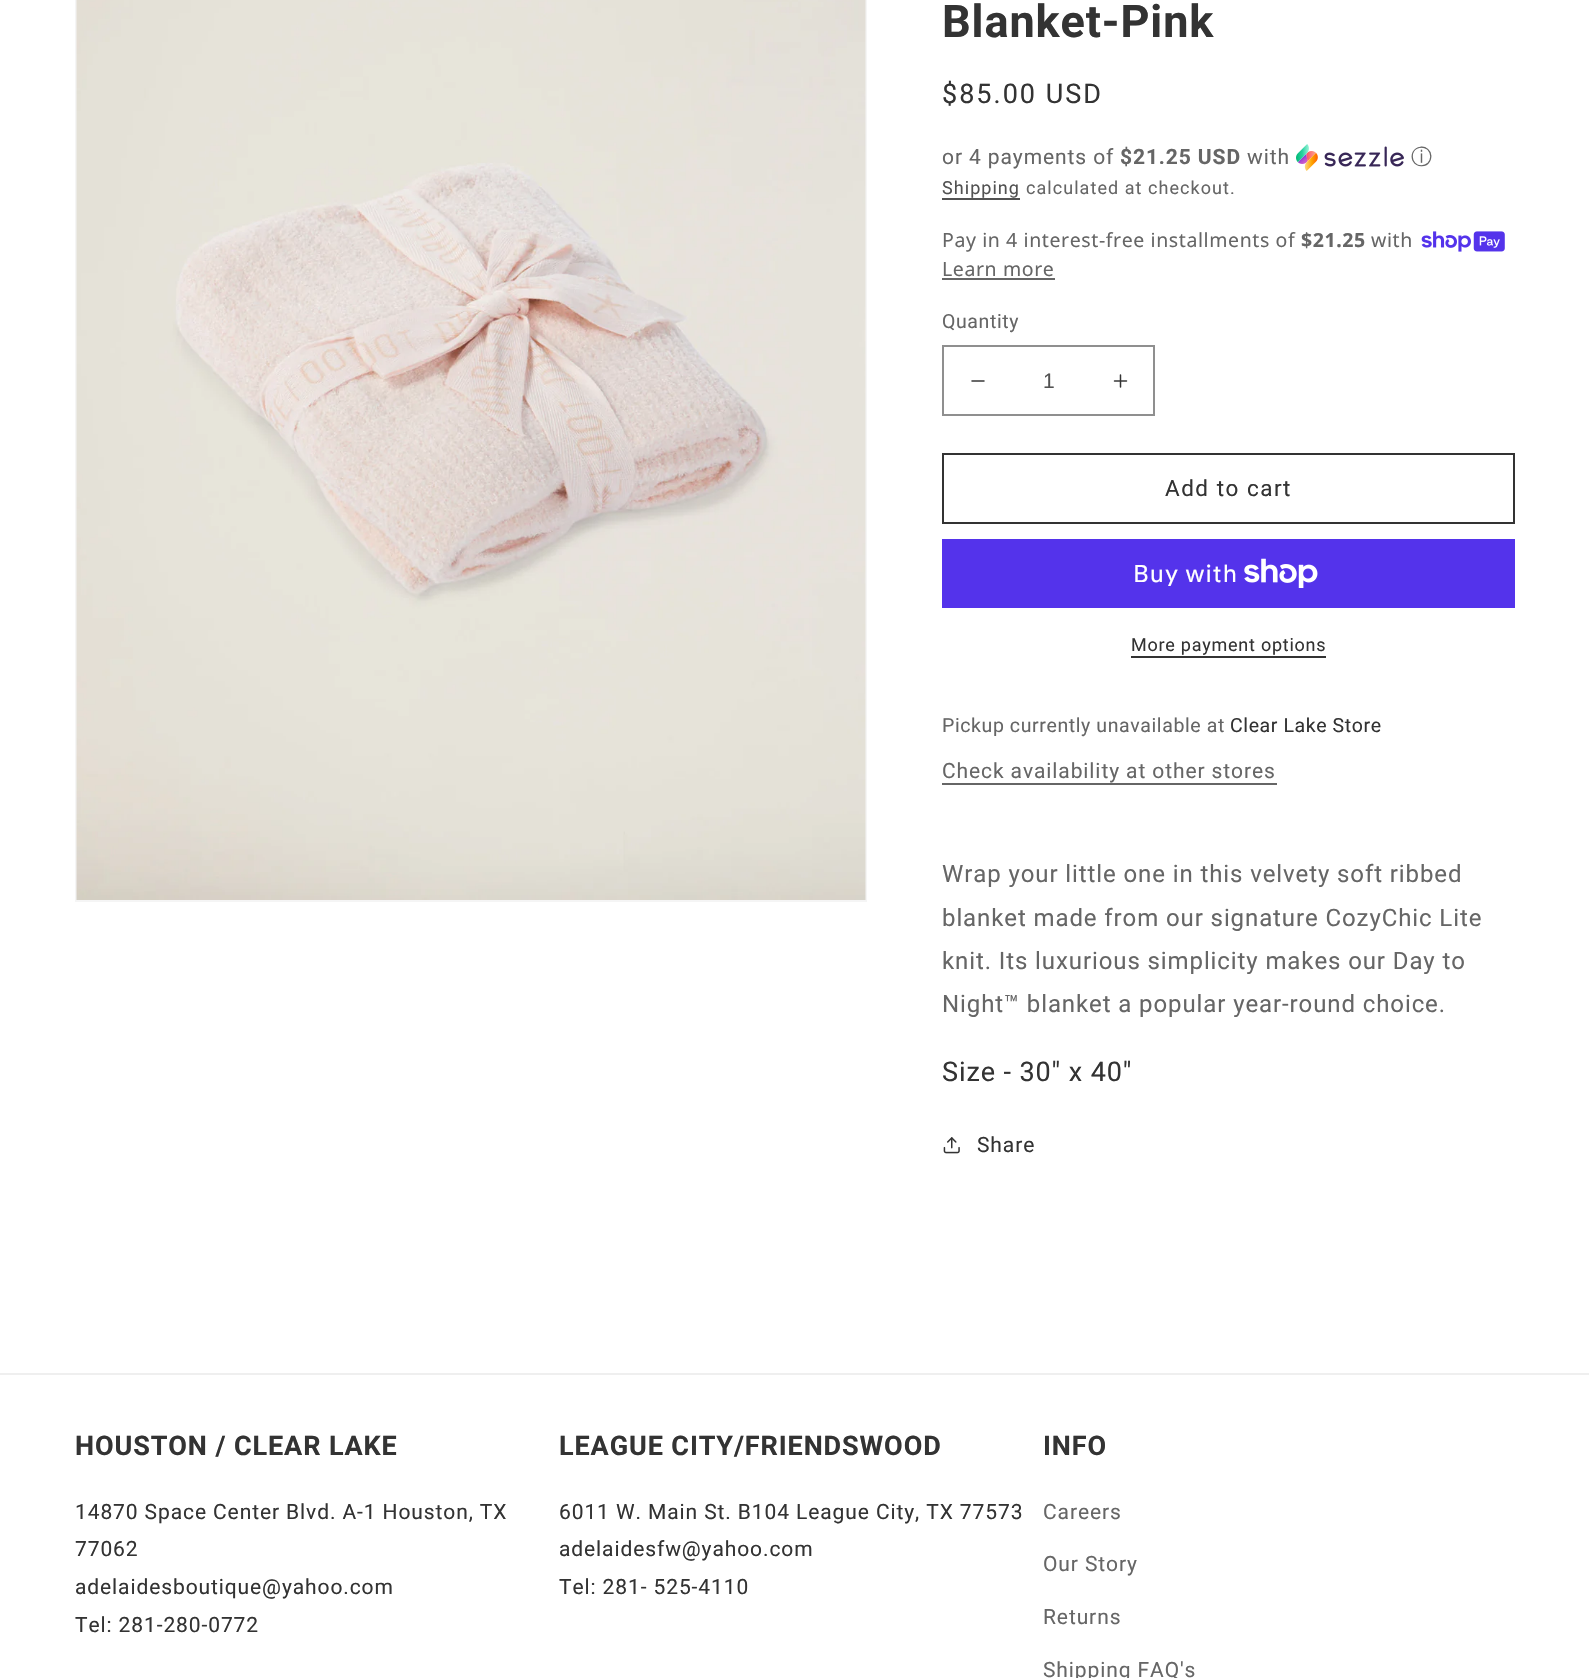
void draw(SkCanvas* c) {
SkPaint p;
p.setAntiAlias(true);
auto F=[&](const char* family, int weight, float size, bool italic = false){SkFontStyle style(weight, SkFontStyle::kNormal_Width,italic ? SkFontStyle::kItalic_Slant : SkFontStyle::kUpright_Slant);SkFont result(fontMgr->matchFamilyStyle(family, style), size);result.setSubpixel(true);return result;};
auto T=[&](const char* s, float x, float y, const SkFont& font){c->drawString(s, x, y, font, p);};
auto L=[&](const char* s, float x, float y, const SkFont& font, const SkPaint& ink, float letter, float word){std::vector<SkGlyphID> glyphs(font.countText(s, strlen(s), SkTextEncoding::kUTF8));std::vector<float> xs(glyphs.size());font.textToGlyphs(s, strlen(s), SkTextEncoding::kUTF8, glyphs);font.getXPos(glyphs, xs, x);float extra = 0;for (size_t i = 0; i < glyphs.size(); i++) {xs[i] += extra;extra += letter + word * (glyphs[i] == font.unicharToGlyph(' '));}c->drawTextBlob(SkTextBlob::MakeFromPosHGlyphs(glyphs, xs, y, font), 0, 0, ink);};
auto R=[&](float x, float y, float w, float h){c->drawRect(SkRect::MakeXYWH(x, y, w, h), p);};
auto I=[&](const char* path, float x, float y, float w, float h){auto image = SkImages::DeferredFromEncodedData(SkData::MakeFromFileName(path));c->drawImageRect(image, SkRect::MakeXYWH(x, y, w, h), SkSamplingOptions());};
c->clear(0xffffffff);
p.setStroke(true);
p.setStrokeWidth(2);
p.setColor(0xfff5f5f5);
c->drawRect(SkRect::MakeXYWH(76,-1,790,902),p);
I("1.png",76,0,790,900);
auto f1 = F("Roboto",700,45);
p.setStroke(false);
p.setColor(0xff333333);
L("Blanket-Pink",942,37,f1,p,.9,0);
auto f2 = F("Roboto",400,27);
L("$85.00 USD",942,103,f2,p,2,0);
auto f3 = F("Roboto",400,21);
p.setColor(0xff666666);
L("or 4 payments of",942,164,f3,p,.9,0);
auto f4 = F("Roboto",700,21);
L("$21.25 USD",1120,164,f4,p,.9,0);
L("with",1247,164,f3,p,.9,0);
I("2.png",1296,144,108,27);
auto f5 = F("WenQuanYi Zen Hei",500,21);
L("ⓘ",1411,164,f5,p,.9,0);
auto f6 = F("Roboto",400,18);
p.setColor(0xff525252);
L("Shipping",942,194,f6,p,1.05,0);
R(942,198,78,2);
p.setColor(0xff666666);
L("calculated at checkout.",1026,194,f6,p,1.05,0);
auto f7 = F("Noto Sans",400,19.5);
L("Pay in 4 interest-free installments of",942,247,f7,p,.6,0);
auto f8 = F("Noto Sans",700,19.5);
L("$21.25",1301,247,f8,p,.6,0);
L("with",1371,247,f7,p,.6,0);
I("3.png",1421,231,84,21);
L("Learn more",942,276,f7,p,.6,0);
R(942,278,113,2);
auto f9 = F("Roboto",400,19.5);
L("Quantity",942,328,f9,p,.6,0);
I("4.png",971,380,14,2);
I("5.png",1113,374,15,14);
p.setStroke(true);
p.setColor(0xff8f8f8f);
c->drawRect(SkRect::MakeXYWH(943,346,211,69),p);
auto f10 = F("Liberation Sans",400,21);
p.setStroke(false);
p.setColor(0xff525252);
T("1",1043,388,f10);
p.setStroke(true);
p.setColor(0xff333333);
c->drawRect(SkRect::MakeXYWH(943,454,571,69),p);
auto f11 = F("Roboto",400,22.5);
p.setStroke(false);
L("Add to cart",1165,496,f11,p,1.5,0);
p.setColor(0xff5433eb);
R(942,539,573,69);
auto f12 = F("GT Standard",400,24);
p.setColor(0xffffffff);
L("Buy with",1133,582,f12,p,.9,0);
I("6.png",1244,558,74,30);
p.setColor(0xff333333);
L("More payment options",1131,651,f6,p,.75,0);
R(1131,656,195,2);
p.setColor(0xff666666);
L("Pickup currently unavailable at",942,732,f9,p,.6,0);
p.setColor(0xff333333);
L("Clear Lake Store",1230,732,f9,p,.6,0);
p.setColor(0xff666666);
L("Check availability at other stores",942,778,f3,p,.9,0);
R(942,783,335,2);
auto f13 = F("Roboto",400,24);
L("Wrap your little one in this velvety soft ribbed",942,882,f13,p,.9,0);
L("blanket made from our signature CozyChic Lite",942,926,f13,p,.9,0);
L("knit. Its luxurious simplicity makes our Day to",942,969,f13,p,.9,0);
L("Night™ blanket a popular year-round choice.",942,1012,f13,p,.9,0);
p.setColor(0xff333333);
L("Size - 30\" x 40\"",942,1081,f2,p,.9,0);
I("7.png",943,1137,17,17);
L("Share",977,1152,f3,p,.9,0);
p.setColor(0xffefefef);
R(0,1373,1589,2);
auto f14 = F("Roboto",700,27);
p.setColor(0xff333333);
L("HOUSTON / CLEAR LAKE",75,1455,f14,p,.9,0);
L("14870 Space Center Blvd. A-1 Houston, TX",75,1519,f3,p,.9,0);
L("77062",75,1556,f3,p,.9,0);
L("adelaidesboutique@yahoo.com",75,1594,f3,p,.9,0);
L("Tel: 281-280-0772",75,1632,f3,p,.9,0);
L("LEAGUE CITY/FRIENDSWOOD",559,1455,f14,p,.9,0);
L("6011 W. Main St. B104 League City, TX 77573",559,1519,f3,p,.9,0);
L("adelaidesfw@yahoo.com",559,1556,f3,p,.9,0);
L("Tel: 281- 525-4110",559,1594,f3,p,.9,0);
L("INFO",1043,1455,f14,p,.9,0);
p.setColor(0xff666666);
L("Careers",1043,1519,f3,p,.9,0);
L("Our Story",1043,1571,f3,p,.9,0);
L("Returns",1043,1624,f3,p,.9,0);
L("Shipping FAQ's",1043,1677,f3,p,.9,0);
}
